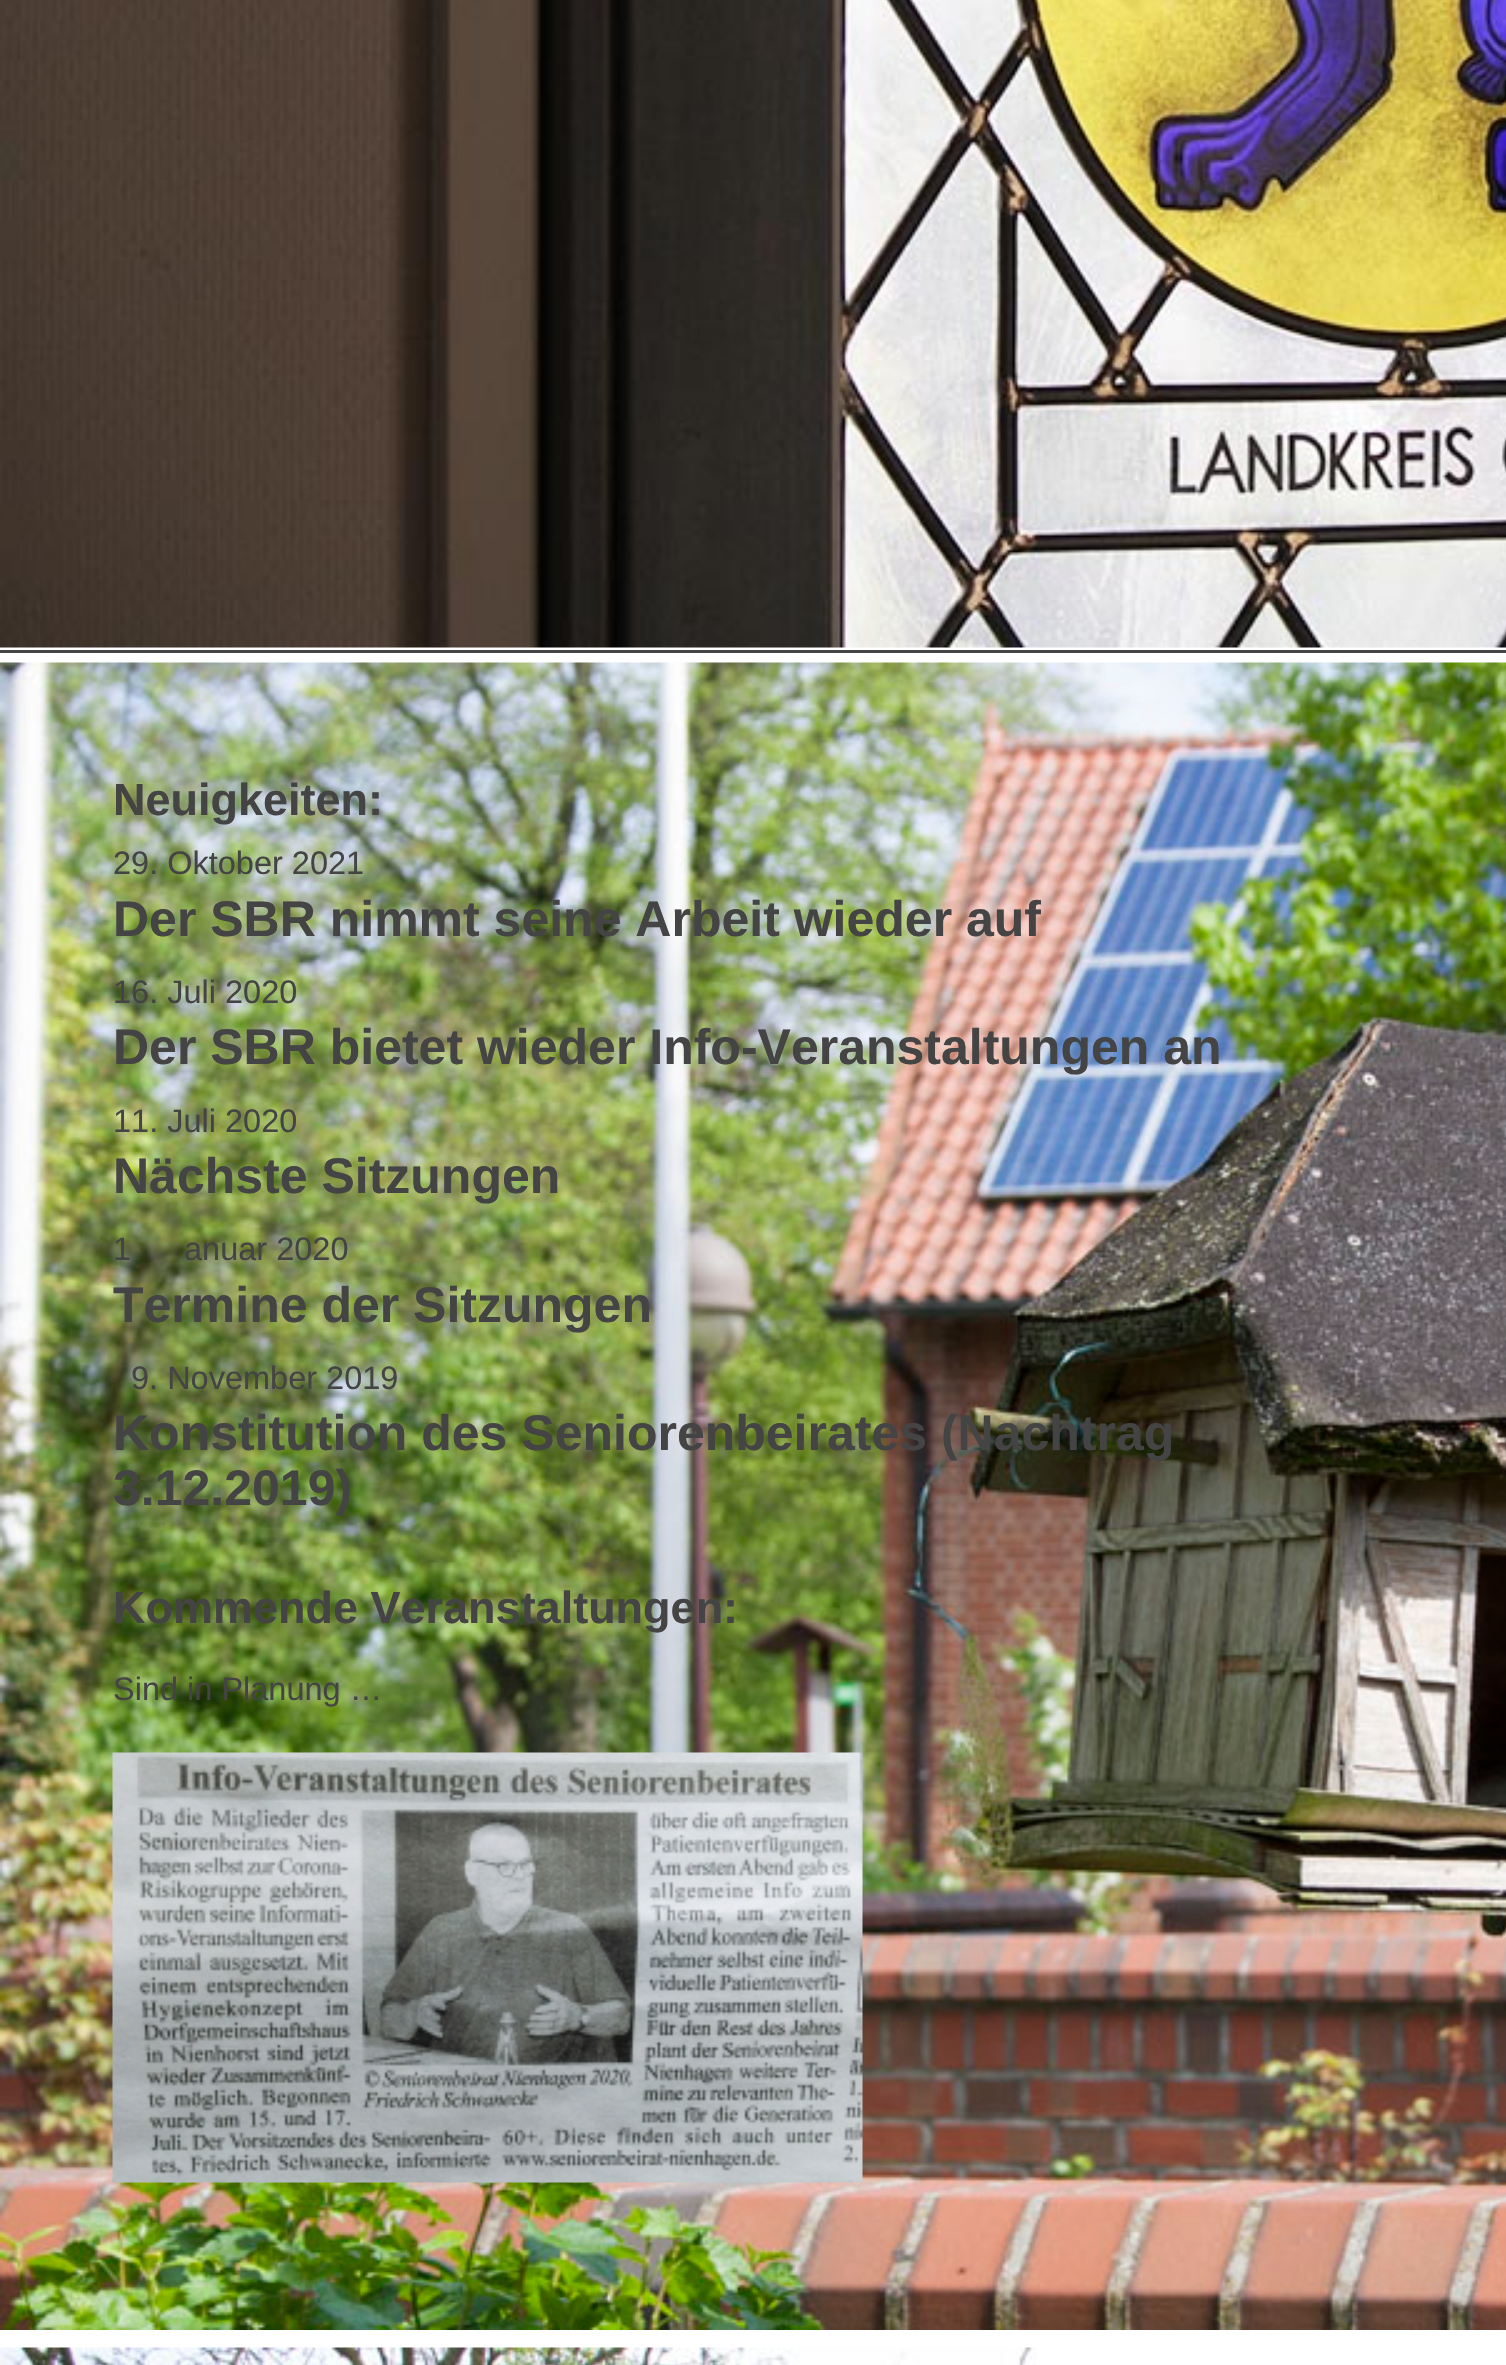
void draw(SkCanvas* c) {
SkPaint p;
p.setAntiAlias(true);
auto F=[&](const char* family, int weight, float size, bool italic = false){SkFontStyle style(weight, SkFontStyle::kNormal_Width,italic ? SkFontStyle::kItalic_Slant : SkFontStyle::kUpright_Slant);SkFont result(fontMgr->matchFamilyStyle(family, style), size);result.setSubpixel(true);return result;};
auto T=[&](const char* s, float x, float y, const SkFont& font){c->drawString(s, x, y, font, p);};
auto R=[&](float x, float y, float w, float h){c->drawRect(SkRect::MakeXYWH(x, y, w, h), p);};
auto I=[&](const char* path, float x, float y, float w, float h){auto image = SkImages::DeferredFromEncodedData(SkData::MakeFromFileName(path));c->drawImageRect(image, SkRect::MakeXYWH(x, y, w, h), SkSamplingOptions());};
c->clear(0xffffffff);
I("1.png",0,0,1506,648);
I("2.png",0,662,1506,1668);
I("3.png",0,2347,1037,18);
p.setColor(0xff444444);
R(0,650,1506,3);
auto f1 = F("Liberation Sans",700,45);
T("Neuigkeiten:",113,815,f1);
auto f2 = F("Liberation Sans",400,32.5);
T("29. Oktober 2021",113,874,f2);
auto f3 = F("Liberation Sans",700,50);
T("Der SBR nimmt seine Arbeit wieder auf",113,936,f3);
T("16. Juli 2020",113,1003,f2);
T("Der SBR bietet wieder Info-Veranstaltungen an",113,1064,f3);
T("11. Juli 2020",113,1132,f2);
T("Nächste Sitzungen",113,1193,f3);
T("1",113,1260,f2);
T("anuar 2020",184,1260,f2);
T("Termine der Sitzungen",113,1322,f3);
T("9. November 2019",131,1389,f2);
T("Konstitution des Seniorenbeirates (Nachtrag",113,1450,f3);
T("3.12.2019)",113,1505,f3);
T("Kommende Veranstaltungen:",113,1623,f1);
T("Sind in Planung …",113,1700,f2);
I("4.png",112,1752,751,431);
}
